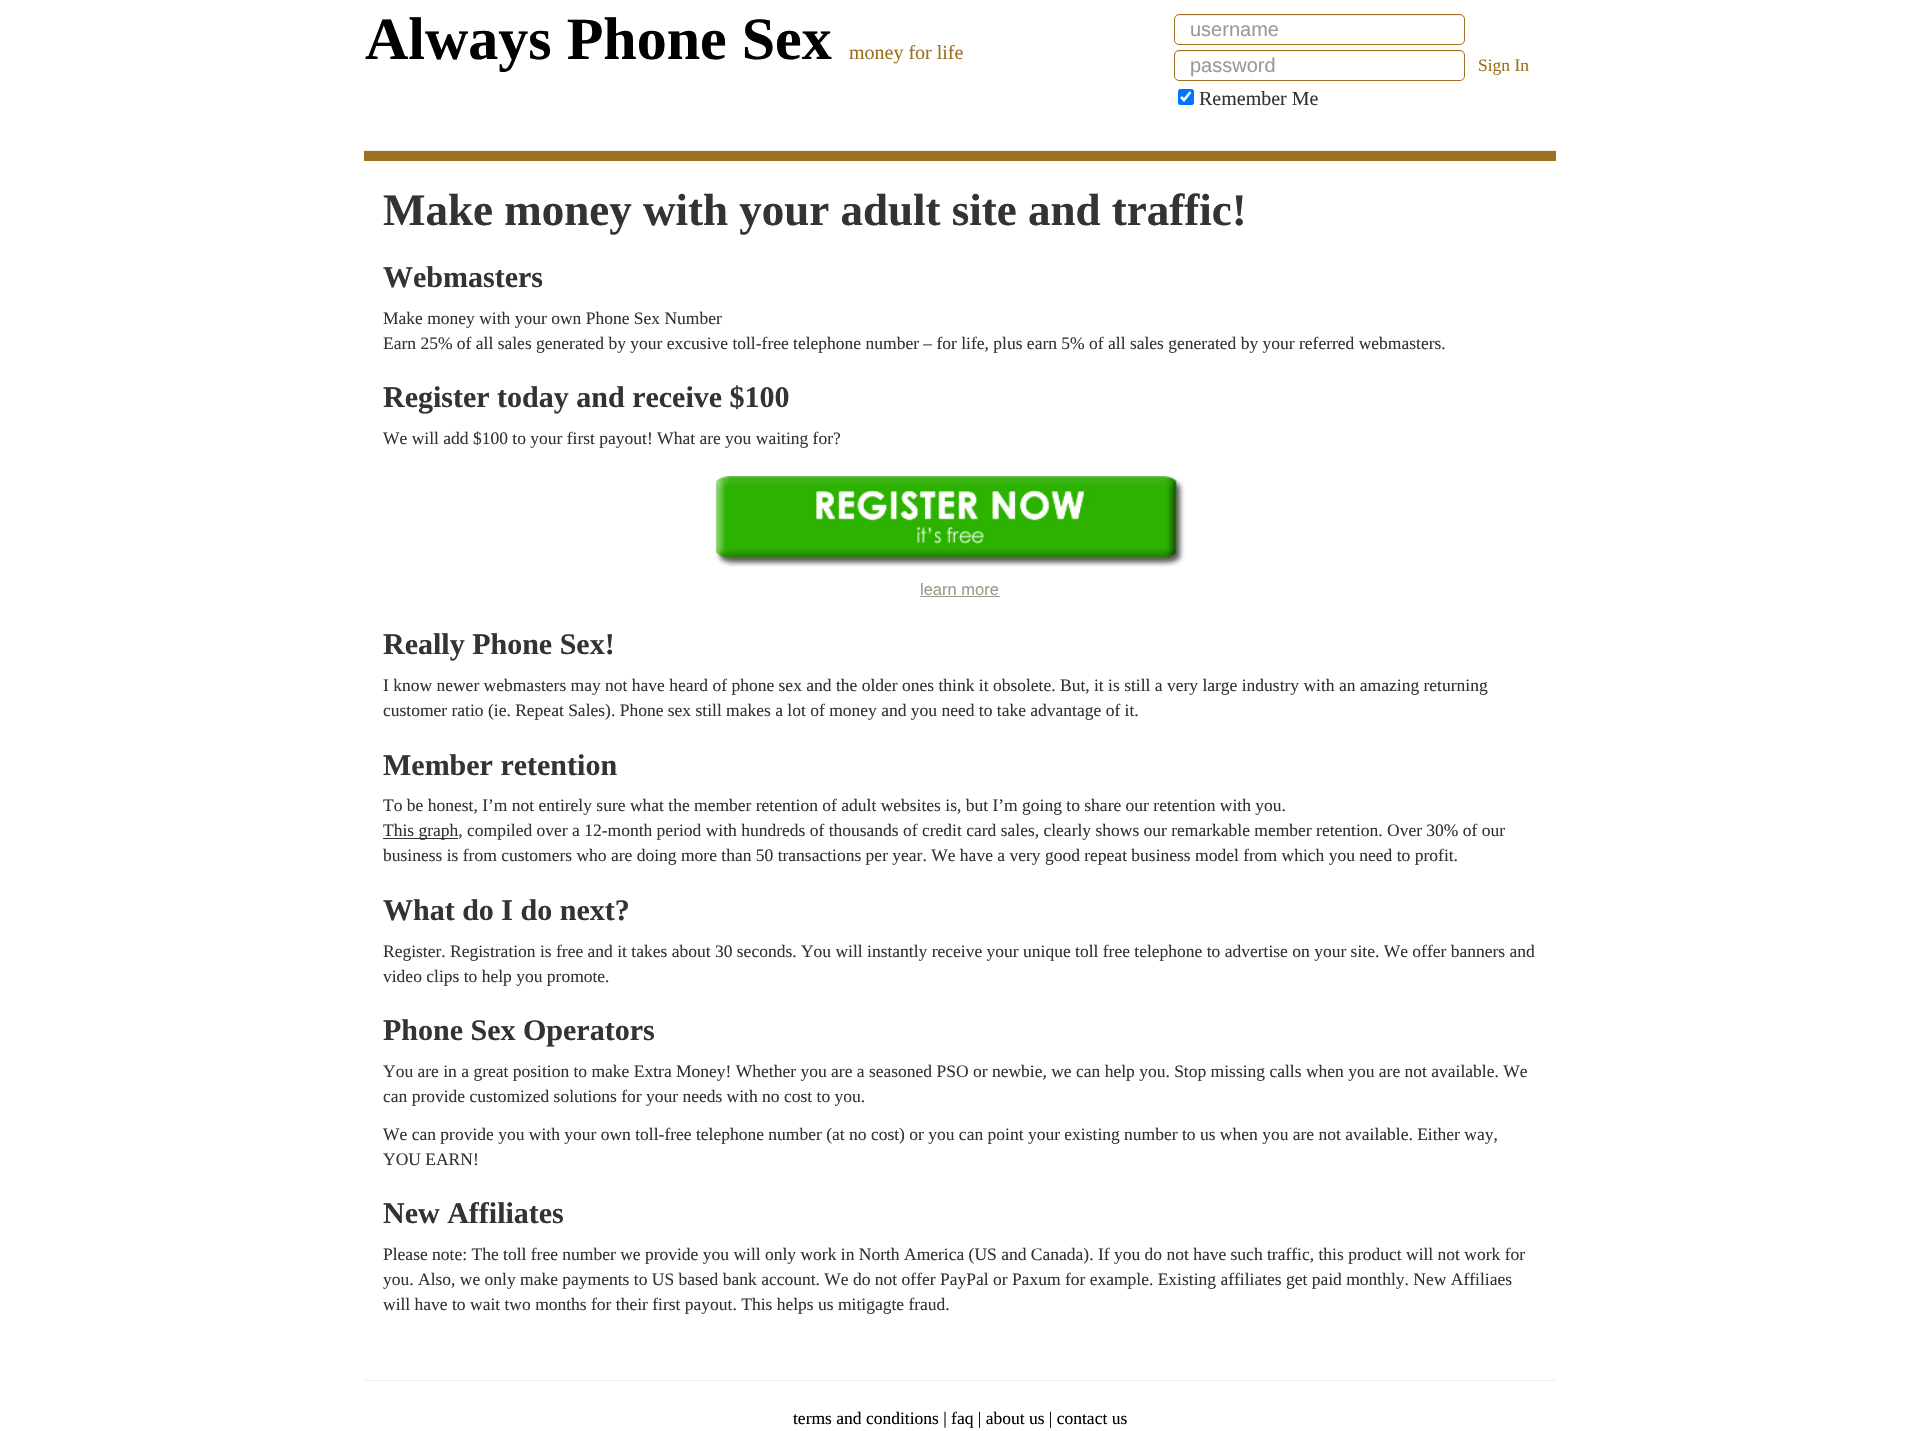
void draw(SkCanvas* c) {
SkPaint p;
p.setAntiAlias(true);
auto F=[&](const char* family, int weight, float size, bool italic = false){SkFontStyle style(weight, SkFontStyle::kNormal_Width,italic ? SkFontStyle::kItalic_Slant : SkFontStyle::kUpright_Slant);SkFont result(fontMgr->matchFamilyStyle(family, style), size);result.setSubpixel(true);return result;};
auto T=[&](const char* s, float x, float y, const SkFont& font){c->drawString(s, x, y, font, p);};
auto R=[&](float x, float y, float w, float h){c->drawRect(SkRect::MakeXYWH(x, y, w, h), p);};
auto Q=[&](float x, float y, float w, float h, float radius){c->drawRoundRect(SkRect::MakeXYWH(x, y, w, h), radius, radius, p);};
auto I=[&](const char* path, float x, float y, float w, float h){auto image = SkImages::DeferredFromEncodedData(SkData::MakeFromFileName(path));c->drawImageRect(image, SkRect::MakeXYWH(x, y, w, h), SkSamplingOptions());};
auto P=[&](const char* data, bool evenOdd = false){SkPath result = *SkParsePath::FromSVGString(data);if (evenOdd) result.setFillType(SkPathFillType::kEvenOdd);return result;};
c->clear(0xffffffff);
auto f1 = F("Liberation Serif",700,60);
p.setColor(0xff000000);
T("Always Phone Sex",365,59,f1);
auto f2 = F("Liberation Serif",400,20);
p.setColor(0xff9d701f);
T("money for life",849,59,f2);
p.setColor(0xffececec);
c->drawPath(P("M1179 16h281c2 0 4 2 4 4c0-3-1-5-4-5h-281c-3 0-4 2-4 5c0-2 2-4 4-4z"),p);
p.setStroke(true);
p.setStrokeWidth(1);
p.setColor(0xff9d701f);
c->drawRoundRect(SkRect::MakeXYWH(1174.5,14.5,290,30),4.5,4.5,p);
auto f3 = F("Liberation Sans",400,20);
p.setStroke(false);
p.setColor(0xff999999);
T("username",1190,36,f3);
p.setColor(0xffececec);
c->drawPath(P("M1179 52h281c2 0 4 2 4 4c0-3-1-5-4-5h-281c-3 0-4 2-4 5c0-2 2-4 4-4z"),p);
p.setStroke(true);
p.setColor(0xff9d701f);
c->drawRoundRect(SkRect::MakeXYWH(1174.5,50.5,290,30),4.5,4.5,p);
p.setStroke(false);
p.setColor(0xff999999);
T("password",1190,72,f3);
auto f4 = F("Liberation Serif",400,17.5);
p.setColor(0xff9d701f);
T("Sign In",1478,71,f4);
p.setColor(0xff0075ff);
Q(1178,89,16,16,2.5);
p.setStroke(true);
p.setStrokeWidth(2.6);
p.setColor(0xffffffff);
c->drawPath(P("M1181 97l3 3l6.5-8"),p);
p.setStroke(false);
p.setColor(0xff333333);
T("Remember Me",1199,105,f2);
p.setColor(0xff9d701f);
R(364,151,1192,10);
p.setColor(0xffeeeeee);
R(364,150,1192,1);
auto f5 = F("Liberation Serif",700,45);
p.setColor(0xff333333);
T("Make money with your adult site and traffic!",383,225,f5);
auto f6 = F("Liberation Serif",700,30);
T("Webmasters",383,287,f6);
T("Make money with your own Phone Sex Number",383,324,f4);
T("Earn 25% of all sales generated by your excusive toll-free telephone number – for life, plus earn 5% of all sales generated by your referred webmasters.",383,349,f4);
T("Register today and receive $100",383,407,f6);
T("We will add $100 to your first payout! What are you waiting for?",383,444,f4);
I("1.png",715,476,470,91);
auto f7 = F("Liberation Sans",400,16.5);
p.setColor(0xff9b9b8c);
T("learn more",920,595,f7);
R(920,596,80,1);
p.setColor(0xff333333);
T("Really Phone Sex!",383,654,f6);
T("I know newer webmasters may not have heard of phone sex and the older ones think it obsolete. But, it is still a very large industry with an amazing returning",383,691,f4);
T("customer ratio (ie. Repeat Sales). Phone sex still makes a lot of money and you need to take advantage of it.",383,716,f4);
T("Member retention",383,775,f6);
T("To be honest, I’m not entirely sure what the member retention of adult websites is, but I’m going to share our retention with you.",383,811,f4);
R(383,838,75,1);
T("This graph, compiled over a 12-month period with hundreds of thousands of credit card sales, clearly shows our remarkable member retention. Over 30% of our",383,836,f4);
T("business is from customers who are doing more than 50 transactions per year. We have a very good repeat business model from which you need to profit.",383,861,f4);
T("What do I do next?",383,920,f6);
T("Register. Registration is free and it takes about 30 seconds. You will instantly receive your unique toll free telephone to advertise on your site. We offer banners and",383,957,f4);
T("video clips to help you promote.",383,982,f4);
T("Phone Sex Operators",383,1040,f6);
T("You are in a great position to make Extra Money! Whether you are a seasoned PSO or newbie, we can help you. Stop missing calls when you are not available. We",383,1077,f4);
T("can provide customized solutions for your needs with no cost to you.",383,1102,f4);
T("We can provide you with your own toll-free telephone number (at no cost) or you can point your existing number to us when you are not available. Either way,",383,1140,f4);
T("YOU EARN!",383,1165,f4);
T("New Affiliates",383,1223,f6);
T("Please note: The toll free number we provide you will only work in North America (US and Canada). If you do not have such traffic, this product will not work for",383,1260,f4);
T("you. Also, we only make payments to US based bank account. We do not offer PayPal or Paxum for example. Existing affiliates get paid monthly. New Affiliaes",383,1285,f4);
T("will have to wait two months for their first payout. This helps us mitigagte fraud.",383,1310,f4);
p.setColor(0xffeeeeee);
R(364,1380,1192,1);
p.setColor(0xff000000);
T("terms and conditions | faq | about us | contact us",793,1424,f4);
}
